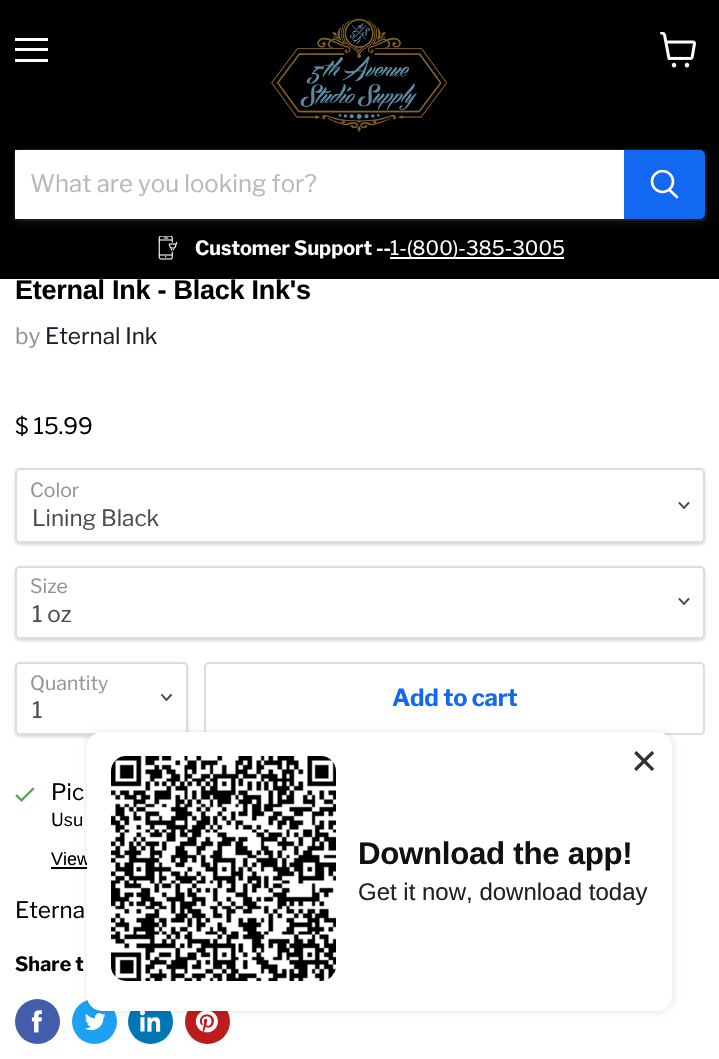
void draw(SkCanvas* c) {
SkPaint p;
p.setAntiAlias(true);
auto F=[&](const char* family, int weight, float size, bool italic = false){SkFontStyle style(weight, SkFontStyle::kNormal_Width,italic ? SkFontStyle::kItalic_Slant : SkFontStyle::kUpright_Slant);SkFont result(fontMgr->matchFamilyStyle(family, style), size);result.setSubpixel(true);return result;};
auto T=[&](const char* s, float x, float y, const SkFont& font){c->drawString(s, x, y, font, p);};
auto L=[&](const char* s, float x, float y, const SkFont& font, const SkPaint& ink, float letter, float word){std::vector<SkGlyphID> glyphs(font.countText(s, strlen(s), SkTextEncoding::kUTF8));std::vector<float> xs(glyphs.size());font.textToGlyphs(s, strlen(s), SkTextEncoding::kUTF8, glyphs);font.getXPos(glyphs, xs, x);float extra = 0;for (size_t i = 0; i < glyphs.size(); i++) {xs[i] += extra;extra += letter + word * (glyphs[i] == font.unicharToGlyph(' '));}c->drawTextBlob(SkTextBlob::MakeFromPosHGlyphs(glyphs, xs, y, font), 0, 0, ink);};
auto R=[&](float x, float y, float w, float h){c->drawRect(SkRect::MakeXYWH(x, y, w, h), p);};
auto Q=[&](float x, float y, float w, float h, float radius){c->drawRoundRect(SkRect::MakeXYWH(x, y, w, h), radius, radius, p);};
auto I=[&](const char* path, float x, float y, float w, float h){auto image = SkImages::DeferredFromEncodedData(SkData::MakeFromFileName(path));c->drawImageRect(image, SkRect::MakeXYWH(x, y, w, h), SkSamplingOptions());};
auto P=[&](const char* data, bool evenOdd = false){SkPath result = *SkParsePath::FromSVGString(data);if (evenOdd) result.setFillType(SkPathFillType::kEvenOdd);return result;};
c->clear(0xffffffff);
p.setColor(0xff000000);
R(0,0,719,279);
p.setColor(0xffffffff);
R(15,38,33,3);
R(15,48,33,3);
R(15,59,33,3);
I("1.png",660,32,36,36);
I("2.png",271,18,177,115);
c->save();
c->clipPath(P("M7 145h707v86h-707zm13 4h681c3.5 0 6 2.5 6 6v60c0 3.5-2.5 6-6 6h-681c-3.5 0-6-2.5-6-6v-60c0-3.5 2.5-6 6-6z",true),true);
p.setColor(0x1c808080);
p.setMaskFilter(SkMaskFilter::MakeBlur(kNormal_SkBlurStyle, 2));
c->drawRoundRect(SkRect::MakeXYWH(14,152,693,72),6,6,p);
p.setMaskFilter(nullptr);
c->restore();
p.setStroke(true);
p.setStrokeWidth(2);
p.setColor(0x33808080);
c->drawRoundRect(SkRect::MakeXYWH(15,150,691,70),5,5,p);
p.setStroke(false);
p.setColor(0xffffffff);
R(15,150,609,69);
auto f1 = F("Libre Franklin",400,24);
p.setColor(0xffb8b8b8);
T("What are you looking for?",30,192,f1);
p.setColor(0xff1268f1);
c->drawPath(P("M625 151h75c2 0 4 2 4 4v59c0 2-2 4-4 4h-75z"),p);
p.setStroke(true);
c->drawPath(P("M625 151h75c2 0 4 2 4 4v59c0 2-2 4-4 4h-75z"),p);
p.setStrokeWidth(2.6);
p.setStrokeCap(SkPaint::kRound_Cap);
p.setColor(0xffffffff);
c->drawPath(P("M677 197l-7.5-7"),p);
c->save();
c->clipRect(SkRect::MakeXYWH(650,170,30,31));
p.setStrokeCap(SkPaint::kButt_Cap);
c->drawCircle(662.5,181.5,10.5,p);
c->restore();
I("3.png",158,236,20,24);
auto f2 = F("Libre Franklin",700,19.75);
p.setStroke(false);
T("Customer Support --",195,255,f2);
R(390,257,174,2);
auto f3 = F("Libre Franklin",400,19.75);
T("1-(800)-385-3005",390,255,f3);
auto f4 = F("Arimo",700,27);
p.setColor(0xff000000);
L("Eternal Ink - Black Ink's",15,299,f4,p,-.25,0);
auto f5 = F("Libre Franklin",400,22.5);
p.setColor(0xff949494);
T("by",15,344,f5);
p.setColor(0xff171f2b);
T("Eternal Ink",45,344,f5);
p.setColor(0xff000000);
T("$ 15.99",15,434,f5);
p.setColor(0x26000000);
p.setMaskFilter(SkMaskFilter::MakeBlur(kNormal_SkBlurStyle, 1.5));
c->drawRoundRect(SkRect::MakeXYWH(15,470,690,75),5,5,p);
p.setMaskFilter(nullptr);
p.setColor(0xffffffff);
c->drawRoundRect(SkRect::MakeXYWH(16,469,688,73),4,4,p);
p.setStroke(true);
p.setStrokeWidth(2);
p.setColor(0xffdddddd);
c->drawRoundRect(SkRect::MakeXYWH(16,469,688,73),4,4,p);
auto f6 = F("Libre Franklin",400,19.5);
p.setStroke(false);
p.setColor(0xff949494);
T("Color",30,497,f6);
p.setStroke(true);
p.setStrokeWidth(1.9);
p.setStrokeCap(SkPaint::kSquare_Cap);
p.setColor(0xff4d4d4d);
c->drawPath(P("M684 508l4.5-5m-4.5 5l-4.5-5"),p);
p.setStroke(false);
T("Lining Black",32,526,f5);
p.setColor(0x26000000);
p.setMaskFilter(SkMaskFilter::MakeBlur(kNormal_SkBlurStyle, 1.5));
c->drawRoundRect(SkRect::MakeXYWH(15,567,690,74),5,5,p);
p.setMaskFilter(nullptr);
p.setColor(0xffffffff);
c->drawRoundRect(SkRect::MakeXYWH(16,567,688,71),4,4,p);
p.setStroke(true);
p.setStrokeWidth(2);
p.setStrokeCap(SkPaint::kButt_Cap);
p.setColor(0xffdddddd);
c->drawRoundRect(SkRect::MakeXYWH(16,567,688,71),4,4,p);
p.setStroke(false);
p.setColor(0xff949494);
T("Size",30,593,f6);
p.setStroke(true);
p.setStrokeWidth(1.9);
p.setStrokeCap(SkPaint::kSquare_Cap);
p.setColor(0xff4d4d4d);
c->drawPath(P("M684 604l4.5-5m-4.5 5l-4.5-5"),p);
p.setStroke(false);
T("1 oz",32,622,f5);
p.setColor(0x26000000);
p.setMaskFilter(SkMaskFilter::MakeBlur(kNormal_SkBlurStyle, 1.5));
c->drawRoundRect(SkRect::MakeXYWH(15,663,173,74),5,5,p);
p.setMaskFilter(nullptr);
p.setColor(0xffffffff);
c->drawRoundRect(SkRect::MakeXYWH(16,663,171,71),4,4,p);
p.setStroke(true);
p.setStrokeWidth(2);
p.setStrokeCap(SkPaint::kButt_Cap);
p.setColor(0xffdddddd);
c->drawRoundRect(SkRect::MakeXYWH(16,663,171,71),4,4,p);
p.setStroke(false);
p.setColor(0xff949494);
T("Quantity",30,690,f6);
p.setStroke(true);
p.setStrokeWidth(1.9);
p.setStrokeCap(SkPaint::kSquare_Cap);
p.setColor(0xff4d4d4d);
c->drawPath(P("M166.5 700l4.5-5m-4.5 5l-4.5-5"),p);
p.setStroke(false);
T("1",32,718,f5);
p.setStroke(true);
p.setStrokeWidth(2);
p.setStrokeCap(SkPaint::kButt_Cap);
p.setColor(0xffdddddd);
c->drawRoundRect(SkRect::MakeXYWH(205,663,499,71),4,4,p);
auto f7 = F("Libre Franklin",700,23.75);
p.setStroke(false);
p.setColor(0xff1268f1);
L("Add to cart",392,706,f7,p,-.25,0);
I("4.png",15,787,20,15);
p.setColor(0xff000000);
T("Pic",51,800,f5);
auto f8 = F("Libre Franklin",400,18);
T("Usu",51,826,f8);
auto f9 = F("Liberation Sans",400,18);
T("View",51,865,f9);
R(51,867,36,2);
T("Eterna",15,918,f5);
T("Share t",15,971,f2);
p.setColor(0xff425dab);
c->drawCircle(37.5,1021.5,22.5,p);
I("5.png",31,1010,11,23);
p.setColor(0xff1da1f2);
c->drawCircle(94.5,1021.5,22.5,p);
I("6.png",85,1013,21,18);
p.setColor(0xff0077b5);
c->drawCircle(150.5,1021.5,22.5,p);
I("7.png",139,1011,22,21);
p.setColor(0xffbd1c1c);
c->drawCircle(207.5,1021.5,22.5,p);
I("8.png",195,1011,23,22);
p.setColor(0x14000000);
p.setMaskFilter(SkMaskFilter::MakeBlur(kNormal_SkBlurStyle, 3));
c->drawRoundRect(SkRect::MakeXYWH(86,731,588,282),17,17,p);
p.setMaskFilter(nullptr);
p.setColor(0xffffffff);
Q(87,732,585,279,15);
I("9.png",111,756,225,225);
auto f10 = F("Liberation Sans",400,45);
p.setColor(0xff333333);
T("×",631,776,f10);
auto f11 = F("Arimo",700,31.25);
p.setColor(0xff111111);
L("Download the app!",358,864,f11,p,-.3,0);
auto f12 = F("Liberation Sans",400,24);
p.setColor(0xff222222);
T("Get it now, download today",358,900,f12);
}
